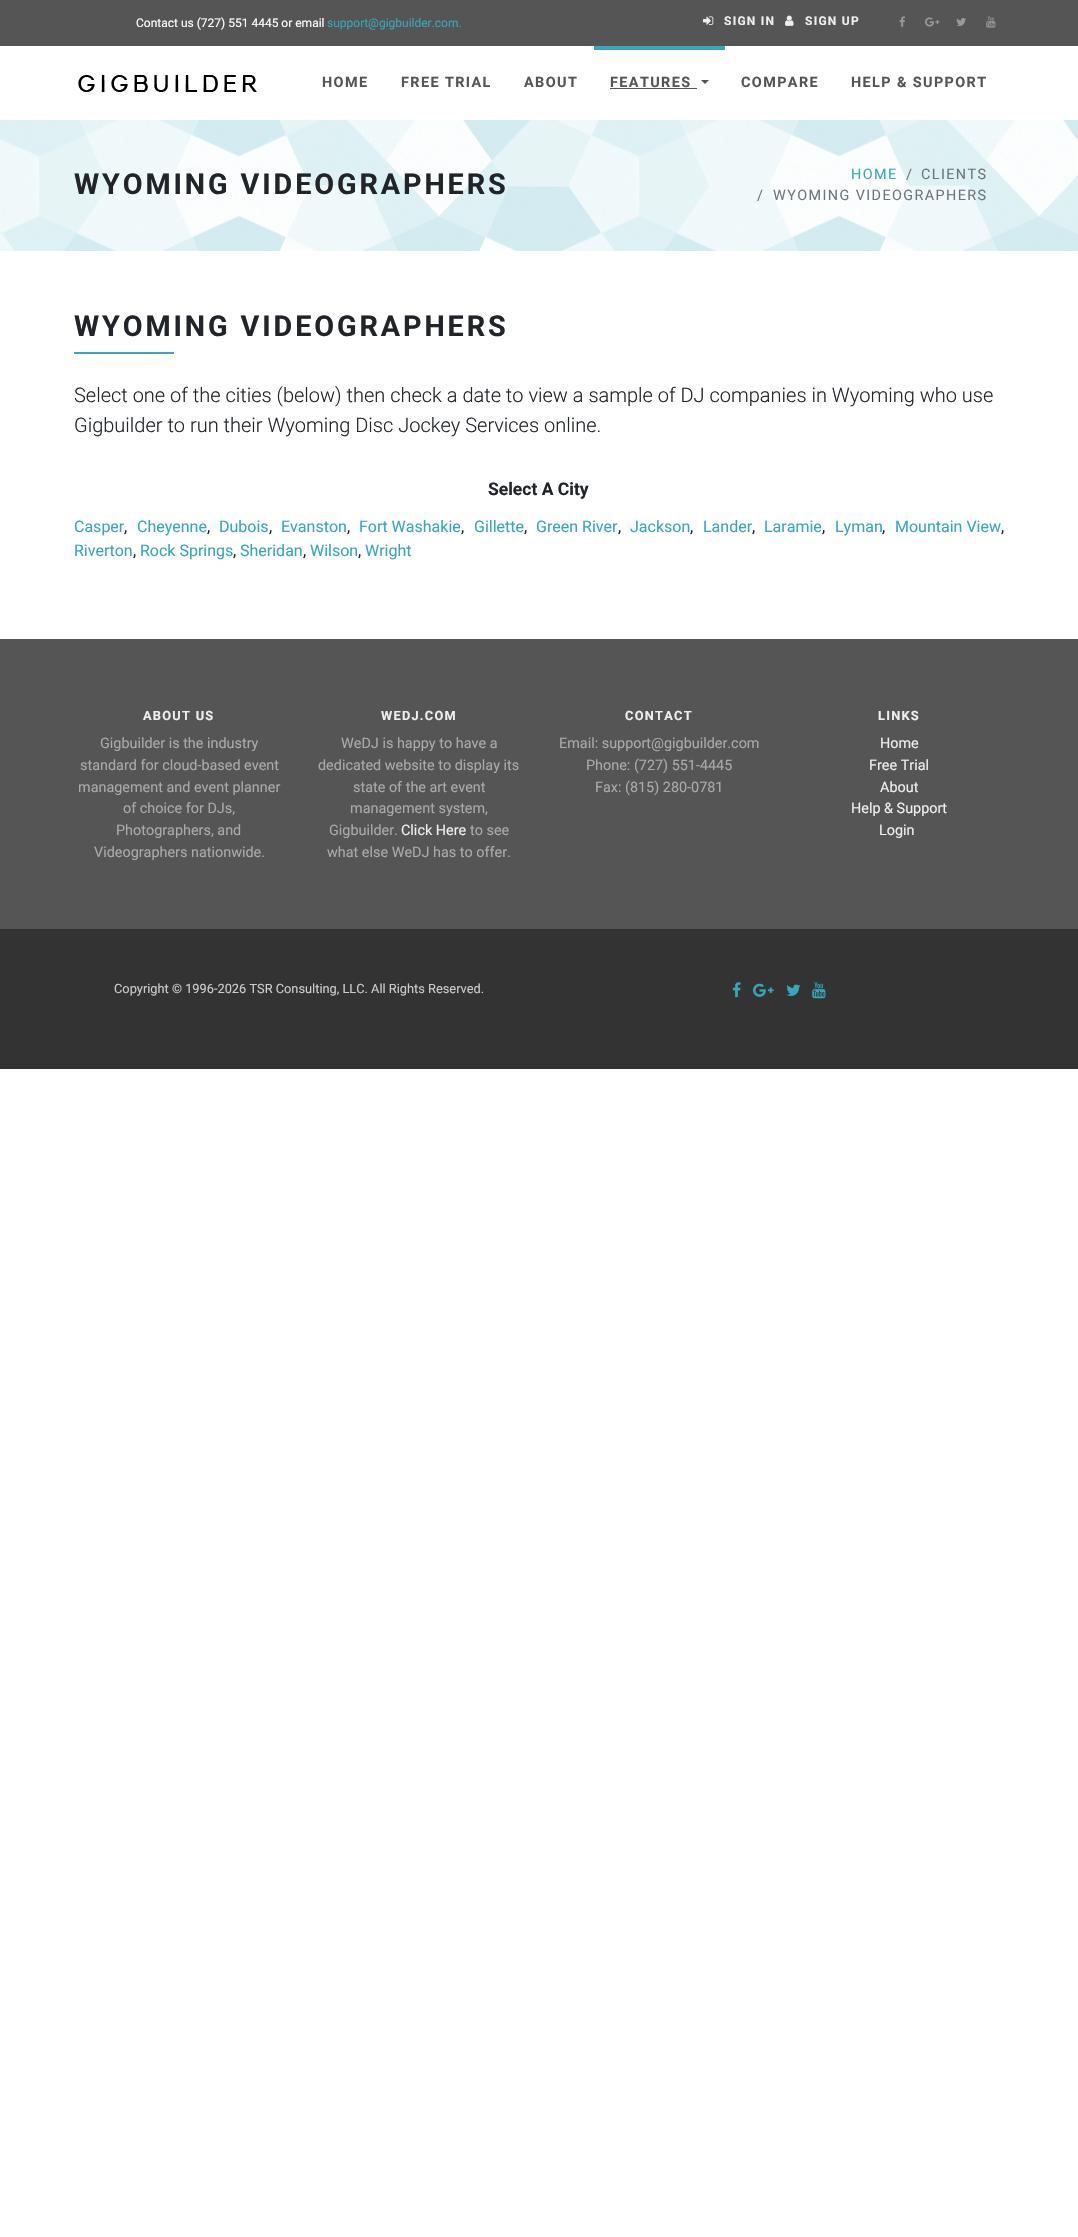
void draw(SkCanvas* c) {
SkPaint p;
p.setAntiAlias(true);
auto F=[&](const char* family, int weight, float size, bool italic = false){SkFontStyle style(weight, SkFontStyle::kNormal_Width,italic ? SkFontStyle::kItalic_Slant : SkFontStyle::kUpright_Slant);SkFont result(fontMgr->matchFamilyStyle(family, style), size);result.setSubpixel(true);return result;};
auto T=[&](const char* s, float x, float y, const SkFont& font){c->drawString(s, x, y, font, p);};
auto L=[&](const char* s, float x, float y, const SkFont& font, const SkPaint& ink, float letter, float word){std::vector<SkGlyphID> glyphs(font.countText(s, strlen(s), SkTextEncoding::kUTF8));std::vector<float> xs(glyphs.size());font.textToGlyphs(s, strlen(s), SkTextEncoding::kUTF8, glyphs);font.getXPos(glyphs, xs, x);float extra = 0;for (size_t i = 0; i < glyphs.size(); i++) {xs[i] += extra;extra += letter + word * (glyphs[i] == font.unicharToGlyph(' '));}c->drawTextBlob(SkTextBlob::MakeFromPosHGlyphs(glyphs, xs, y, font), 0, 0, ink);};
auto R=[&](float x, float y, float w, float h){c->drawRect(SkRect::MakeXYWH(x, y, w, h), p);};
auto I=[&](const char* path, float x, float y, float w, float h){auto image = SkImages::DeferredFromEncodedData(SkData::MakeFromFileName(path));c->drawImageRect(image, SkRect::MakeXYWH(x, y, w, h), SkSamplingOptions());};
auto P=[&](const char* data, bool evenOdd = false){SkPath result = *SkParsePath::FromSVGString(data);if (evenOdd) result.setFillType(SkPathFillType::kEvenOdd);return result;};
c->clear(0xffffffff);
p.setColor(0xff555555);
R(0,0,1078,46);
auto f1 = F("Roboto",400,12);
p.setColor(0xffffffff);
T("Contact us (727) 551 4445 or email",136,27,f1);
p.setColor(0xff38a7bb);
T("support@gigbuilder.com.",327,27,f1);
I("1.png",703,16,11,9);
auto f2 = F("Roboto",700,12);
p.setColor(0xffeeeeee);
L("SIGN IN",724,25,f2,p,1.25,0);
I("2.png",785,15,9,11);
L("SIGN UP",805,25,f2,p,1.25,0);
I("3.png",899,16,6,11);
I("4.png",925,17,15,10);
I("5.png",956,18,10,8);
I("6.png",986,16,10,12);
I("7.png",78,75,179,17);
auto f3 = F("Roboto",700,14.4);
p.setColor(0xff555555);
L("HOME",322,87,f3,p,1.4,0);
L("FREE TRIAL",401,87,f3,p,1.4,0);
L("ABOUT",524,87,f3,p,1.4,0);
p.setColor(0xff38a7bb);
R(594,46,131,4);
p.setColor(0xff555555);
L("FEATURES",610,87,f3,p,1.4,0);
R(610,88,87,1);
c->drawPath(P("M701 80h8l-4 4z"),p);
L("COMPARE",741,87,f3,p,1.4,0);
L("HELP & SUPPORT",851,87,f3,p,1.4,0);
I("8.png",0,120,1078,131);
auto f4 = F("Roboto",700,28.75);
p.setColor(0xff212529);
L("WYOMING VIDEOGRAPHERS",74,194,f4,p,2.9,0);
auto f5 = F("Roboto",400,14.4);
p.setColor(0xff38a7bb);
L("HOME",851,179,f5,p,1.4,0);
p.setColor(0xff6c757d);
L("/",906,179,f5,p,1.4,0);
L("CLIENTS",921,179,f5,p,1.4,0);
L("/",757,200,f5,p,1.4,0);
L("WYOMING VIDEOGRAPHERS",773,200,f5,p,1.4,0);
p.setColor(0xff212529);
L("WYOMING VIDEOGRAPHERS",74,336,f4,p,2.9,0);
p.setColor(0xff38a7bb);
R(74,352,100,2);
auto f6 = F("Roboto",300,20);
p.setColor(0xff212529);
T("Select one of the cities (below) then check a date to view a sample of DJ companies in Wyoming who use",74,402,f6);
T("Gigbuilder to run their Wyoming Disc Jockey Services online.",74,432,f6);
auto f7 = F("Roboto",700,17.5);
T("Select A City",488,495,f7);
auto f8 = F("Roboto",400,16);
p.setColor(0xff38a7bb);
T("Casper",74,532,f8);
p.setColor(0xff212529);
T(",",124,532,f8);
p.setColor(0xff38a7bb);
T("Cheyenne",137,532,f8);
p.setColor(0xff212529);
T(",",207,532,f8);
p.setColor(0xff38a7bb);
T("Dubois",219,532,f8);
p.setColor(0xff212529);
T(",",269,532,f8);
p.setColor(0xff38a7bb);
T("Evanston",281,532,f8);
p.setColor(0xff212529);
T(",",347,532,f8);
p.setColor(0xff38a7bb);
T("Fort Washakie",359,532,f8);
p.setColor(0xff212529);
T(",",461,532,f8);
p.setColor(0xff38a7bb);
T("Gillette",474,532,f8);
p.setColor(0xff212529);
T(",",524,532,f8);
p.setColor(0xff38a7bb);
T("Green River",536,532,f8);
p.setColor(0xff212529);
T(",",618,532,f8);
p.setColor(0xff38a7bb);
T("Jackson",630,532,f8);
p.setColor(0xff212529);
T(",",690,532,f8);
p.setColor(0xff38a7bb);
T("Lander",703,532,f8);
p.setColor(0xff212529);
T(",",752,532,f8);
p.setColor(0xff38a7bb);
T("Laramie",764,532,f8);
p.setColor(0xff212529);
T(",",822,532,f8);
p.setColor(0xff38a7bb);
T("Lyman",835,532,f8);
p.setColor(0xff212529);
T(",",882,532,f8);
p.setColor(0xff38a7bb);
T("Mountain View",895,532,f8);
p.setColor(0xff212529);
T(",",1001,532,f8);
p.setColor(0xff38a7bb);
T("Riverton",74,556,f8);
p.setColor(0xff212529);
T(",",133,556,f8);
p.setColor(0xff38a7bb);
T("Rock Springs",140,556,f8);
p.setColor(0xff212529);
T(",",233,556,f8);
p.setColor(0xff38a7bb);
T("Sheridan",240,556,f8);
p.setColor(0xff212529);
T(",",303,556,f8);
p.setColor(0xff38a7bb);
T("Wilson",310,556,f8);
p.setColor(0xff212529);
T(",",358,556,f8);
p.setColor(0xff38a7bb);
T("Wright",365,556,f8);
p.setColor(0xff555555);
R(0,639,1078,290);
auto f9 = F("Roboto",700,12.8);
p.setColor(0xffeeeeee);
L("ABOUT US",143,720,f9,p,1.25,0);
p.setColor(0xffaaaaaa);
T("Gigbuilder is the industry",100,748,f5);
T("standard for cloud-based event",80,770,f5);
T("management and event planner",78,792,f5);
T("of choice for DJs,",123,813,f5);
T("Photographers, and",116,835,f5);
T("Videographers nationwide.",94,857,f5);
p.setColor(0xffeeeeee);
L("WEDJ.COM",381,720,f9,p,1.25,0);
p.setColor(0xffaaaaaa);
T("WeDJ is happy to have a",341,748,f5);
T("dedicated website to display its",318,770,f5);
T("state of the art event",353,792,f5);
T("management system,",350,813,f5);
T("Gigbuilder.",329,835,f5);
p.setColor(0xffeeeeee);
T("Click Here",401,835,f5);
p.setColor(0xffaaaaaa);
T("to see",470,835,f5);
T("what else WeDJ has to offer.",327,857,f5);
p.setColor(0xffeeeeee);
L("CONTACT",625,720,f9,p,1.25,0);
p.setColor(0xffaaaaaa);
T("Email: support@gigbuilder.com",559,748,f5);
T("Phone: (727) 551-4445",586,770,f5);
T("Fax: (815) 280-0781",595,792,f5);
p.setColor(0xffeeeeee);
L("LINKS",878,720,f9,p,1.25,0);
T("Home",880,748,f5);
T("Free Trial",869,770,f5);
T("About",880,792,f5);
T("Help & Support",851,813,f5);
T("Login",879,835,f5);
p.setColor(0xff333333);
R(0,929,1078,140);
auto f10 = F("Roboto",400,12.8);
p.setColor(0xffcccccc);
T("Copyright © 1996-2026 TSR Consulting, LLC. All Rights Reserved.",114,993,f10);
I("9.png",732,982,9,16);
I("10.png",753,983,21,14);
I("11.png",786,984,15,12);
I("12.png",812,982,14,17);
}
